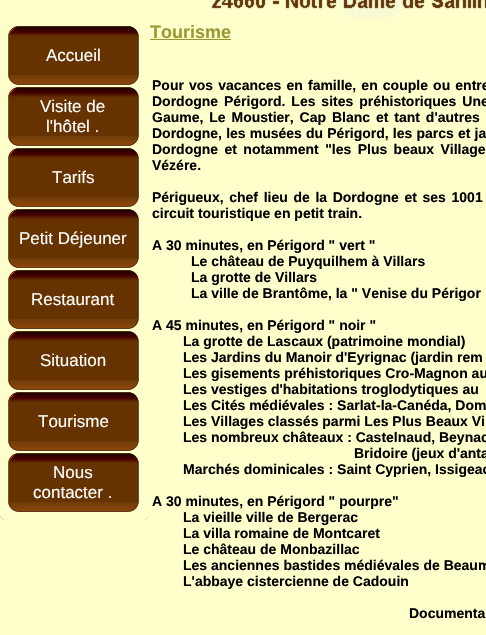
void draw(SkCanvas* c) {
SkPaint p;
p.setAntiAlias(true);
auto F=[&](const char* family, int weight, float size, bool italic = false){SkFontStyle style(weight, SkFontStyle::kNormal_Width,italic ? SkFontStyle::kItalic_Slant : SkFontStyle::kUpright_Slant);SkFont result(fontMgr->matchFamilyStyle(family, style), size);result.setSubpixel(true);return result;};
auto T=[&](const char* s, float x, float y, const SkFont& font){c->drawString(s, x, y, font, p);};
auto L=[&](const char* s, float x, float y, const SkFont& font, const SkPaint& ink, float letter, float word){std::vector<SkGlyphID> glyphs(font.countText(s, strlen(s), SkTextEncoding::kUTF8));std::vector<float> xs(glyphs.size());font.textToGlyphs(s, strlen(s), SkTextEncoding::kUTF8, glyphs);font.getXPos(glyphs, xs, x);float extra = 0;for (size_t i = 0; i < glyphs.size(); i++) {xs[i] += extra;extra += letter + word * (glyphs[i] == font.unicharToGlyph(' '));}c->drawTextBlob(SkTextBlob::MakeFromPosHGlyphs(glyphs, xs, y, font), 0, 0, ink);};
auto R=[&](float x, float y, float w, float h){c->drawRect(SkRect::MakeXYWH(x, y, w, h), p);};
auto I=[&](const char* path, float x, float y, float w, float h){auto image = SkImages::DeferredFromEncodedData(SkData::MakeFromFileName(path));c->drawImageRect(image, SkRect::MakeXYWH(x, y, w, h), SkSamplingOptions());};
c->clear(0xffffffcc);
I("1.png",211,0,275,18);
I("2.png",8,26,131,59);
I("3.png",8,26,131,59);
auto f1 = F("Liberation Sans",400,17);
p.setColor(0xffffffff);
T("Accueil",46,61,f1);
I("2.png",8,87,131,59);
I("3.png",8,87,131,59);
T("Visite de",40,112,f1);
T("l'hôtel .",46,132,f1);
I("2.png",8,148,131,59);
I("3.png",8,148,131,59);
T("Tarifs",52,183,f1);
I("2.png",8,209,131,59);
I("3.png",8,209,131,59);
T("Petit Déjeuner",19,244,f1);
I("2.png",8,270,131,59);
I("3.png",8,270,131,59);
T("Restaurant",31,305,f1);
I("2.png",8,331,131,59);
I("3.png",8,331,131,59);
T("Situation",40,366,f1);
I("2.png",8,392,131,59);
I("3.png",8,392,131,59);
T("Tourisme",38,427,f1);
I("2.png",8,453,131,59);
I("3.png",8,453,131,59);
T("Nous",53,478,f1);
T("contacter .",33,498,f1);
I("4.png",0,516,4,4);
I("5.png",145,516,4,4);
auto f2 = F("Liberation Sans",700,18);
p.setColor(0xff999933);
T("Tourisme",150,38,f2);
R(150,39,81,1);
auto f3 = F("Liberation Sans",700,14);
p.setColor(0xff000000);
L("Pour vos vacances en famille, en couple ou entre",152,90,f3,p,0,1.25);
L("Dordogne Périgord. Les sites préhistoriques Une",152,106,f3,p,0,2);
L("Gaume, Le Moustier, Cap Blanc et tant d'autres",152,122,f3,p,0,2);
L("Dordogne, les musées du Périgord, les parcs et ja",152,138,f3,p,0,.25);
L("Dordogne et notamment \"les Plus beaux Village",152,154,f3,p,0,2.5);
T("Vézére.",152,170,f3);
L("Périgueux, chef lieu de la Dordogne et ses 1001",152,202,f3,p,0,1.75);
T("circuit touristique en petit train.",152,218,f3);
T("A 30 minutes, en Périgord \" vert \"",152,250,f3);
T("Le château de Puyquilhem à Villars",191,266,f3);
T("La grotte de Villars",191,282,f3);
T("La ville de Brantôme, la \" Venise du Périgor",191,298,f3);
T("A 45 minutes, en Périgord \" noir \"",152,330,f3);
T("La grotte de Lascaux (patrimoine mondial)",183,346,f3);
T("Les Jardins du Manoir d'Eyrignac (jardin rem",183,362,f3);
T("Les gisements préhistoriques Cro-Magnon au",183,378,f3);
T("Les vestiges d'habitations troglodytiques au",183,394,f3);
T("Les Cités médiévales : Sarlat-la-Canéda, Dom",183,410,f3);
T("Les Villages classés parmi Les Plus Beaux Vi",183,426,f3);
T("Les nombreux châteaux : Castelnaud, Beynac",183,442,f3);
T("Bridoire (jeux d'anta",354,458,f3);
T("Marchés dominicales : Saint Cyprien, Issigeac",183,474,f3);
T("A 30 minutes, en Périgord \" pourpre\"",152,506,f3);
T("La vieille ville de Bergerac",183,522,f3);
T("La villa romaine de Montcaret",183,538,f3);
T("Le château de Monbazillac",183,554,f3);
T("Les anciennes bastides médiévales de Beaum",183,570,f3);
T("L'abbaye cistercienne de Cadouin",183,586,f3);
T("Documenta",409,618,f3);
}
